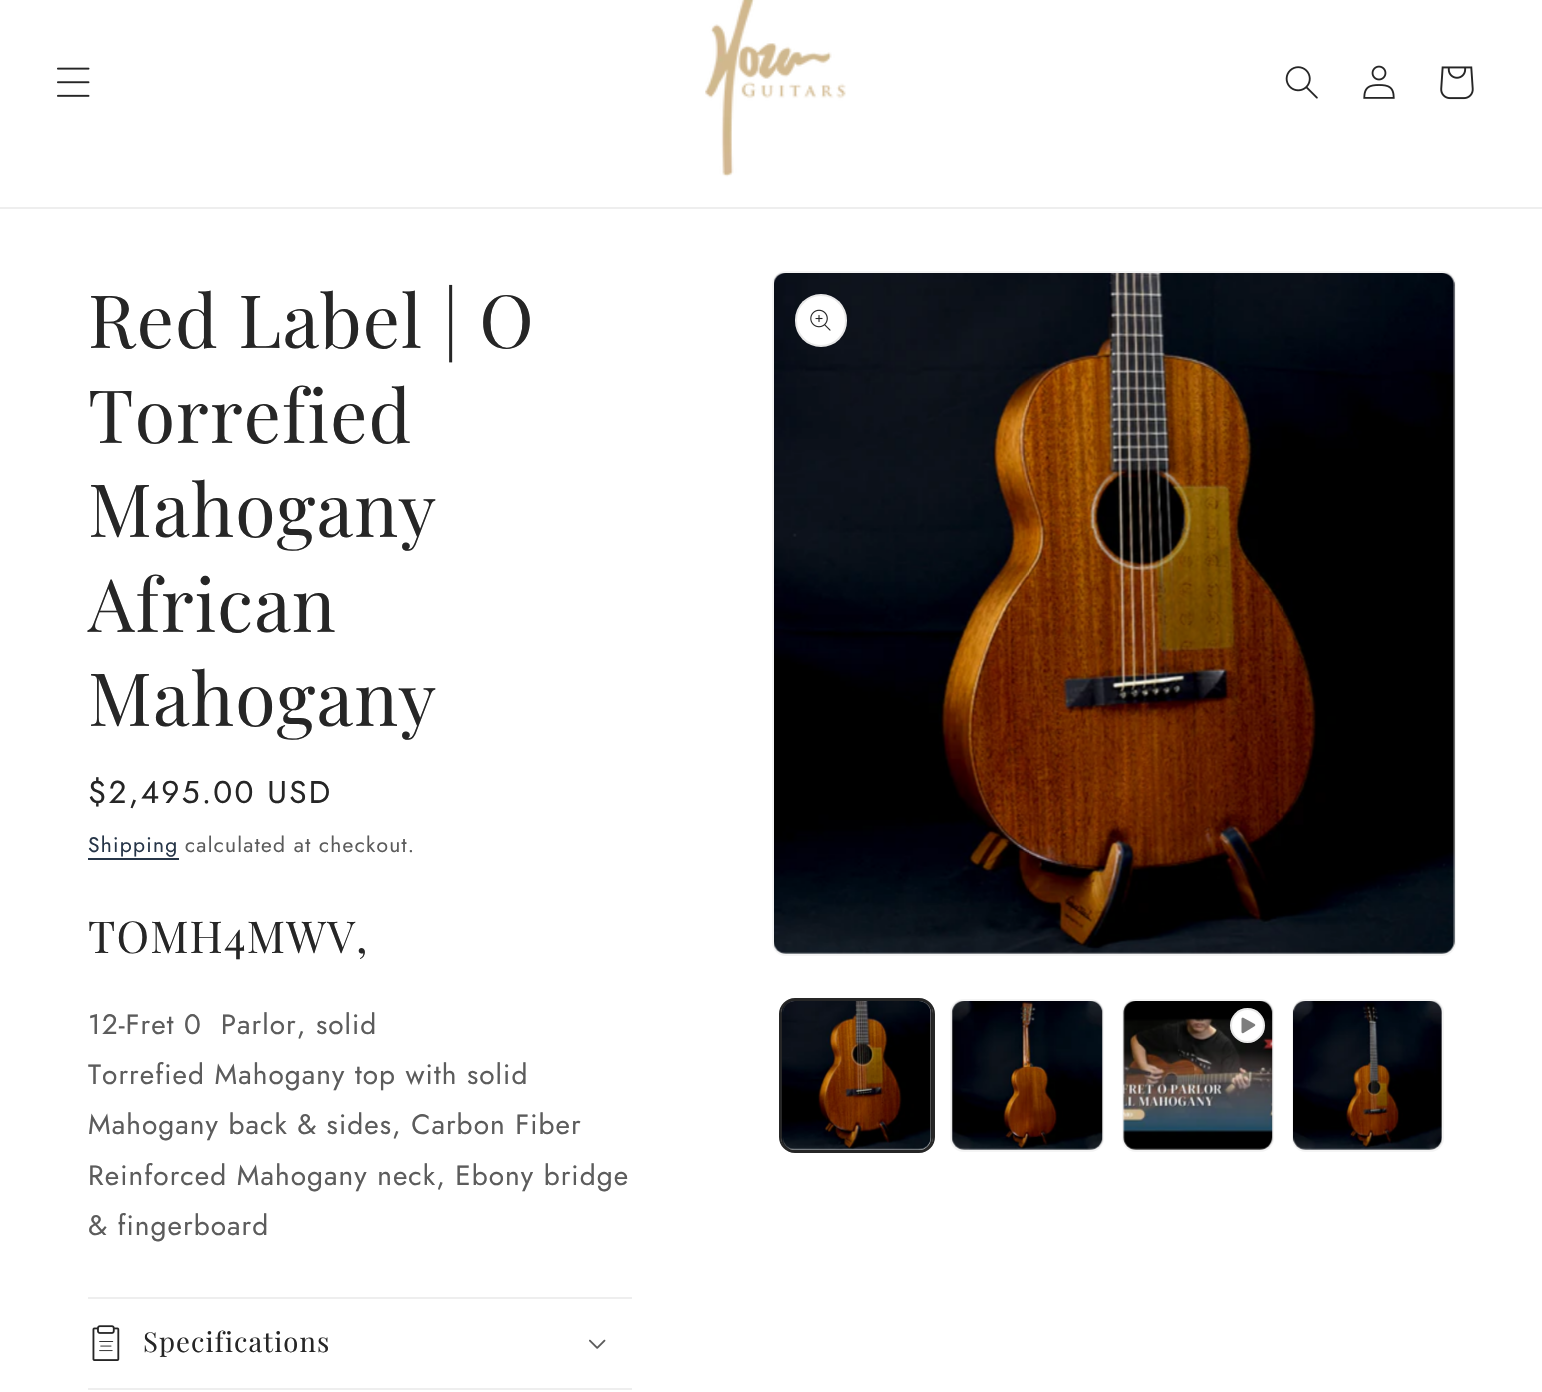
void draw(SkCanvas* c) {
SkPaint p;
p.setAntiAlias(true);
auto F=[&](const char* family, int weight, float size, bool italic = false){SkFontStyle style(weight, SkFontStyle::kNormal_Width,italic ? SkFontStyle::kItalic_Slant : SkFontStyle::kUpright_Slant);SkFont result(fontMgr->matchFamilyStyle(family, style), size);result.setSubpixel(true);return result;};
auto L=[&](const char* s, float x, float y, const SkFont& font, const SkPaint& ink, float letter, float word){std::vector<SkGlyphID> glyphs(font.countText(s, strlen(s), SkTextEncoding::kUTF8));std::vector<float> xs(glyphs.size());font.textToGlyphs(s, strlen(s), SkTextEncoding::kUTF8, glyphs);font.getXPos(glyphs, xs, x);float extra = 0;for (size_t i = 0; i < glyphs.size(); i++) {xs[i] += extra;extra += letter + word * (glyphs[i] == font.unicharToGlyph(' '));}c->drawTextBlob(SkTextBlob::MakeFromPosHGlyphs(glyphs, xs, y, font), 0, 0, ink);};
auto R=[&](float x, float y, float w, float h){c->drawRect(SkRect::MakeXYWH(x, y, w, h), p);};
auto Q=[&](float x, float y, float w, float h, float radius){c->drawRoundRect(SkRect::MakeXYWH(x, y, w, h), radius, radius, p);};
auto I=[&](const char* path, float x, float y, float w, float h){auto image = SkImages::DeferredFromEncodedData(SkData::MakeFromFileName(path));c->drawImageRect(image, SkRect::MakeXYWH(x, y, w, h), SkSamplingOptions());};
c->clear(0xffffffff);
p.setColor(0xffeeeeee);
R(0,207,1542,2);
I("1.png",57,67,33,30);
I("2.png",705,0,141,177);
I("3.png",1285,66,33,33);
I("4.png",1363,65,32,34);
I("5.png",1440,66,34,34);
auto f1 = F("Playfair Display",400,73.5);
p.setColor(0xff262626);
L("Red Label | O",88,348,f1,p,1.1,0);
L("Torrefied",88,443,f1,p,1.1,0);
L("Mahogany",88,537,f1,p,1.1,0);
L("African",88,632,f1,p,1.1,0);
L("Mahogany",88,726,f1,p,1.1,0);
auto f2 = F("Jost",400,31.5);
L("$2,495.00 USD",88,803,f2,p,2.25,0);
auto f3 = F("Jost",400,21);
p.setColor(0xff263548);
L("Shipping",88,852,f3,p,1.25,0);
R(88,858,91,2);
p.setColor(0xff5c5c5c);
L("calculated at checkout.",185,852,f3,p,1.25,0);
auto f4 = F("Playfair Display",400,44);
p.setColor(0xff262626);
L("TOMH4MWV,",88,953,f4,p,1.1,0);
auto f5 = F("Jost",400,28);
p.setColor(0xff5c5c5c);
L("12-Fret 0  Parlor, solid",88,1034,f5,p,1.05,0);
L("Torrefied Mahogany top with solid",88,1084,f5,p,1.05,0);
L("Mahogany back & sides, Carbon Fiber",88,1134,f5,p,1.05,0);
L("Reinforced Mahogany neck, Ebony bridge",88,1185,f5,p,1.05,0);
L("& fingerboard",88,1235,f5,p,1.05,0);
p.setColor(0xffeeeeee);
R(88,1297,544,2);
R(88,1388,544,2);
I("6.png",92,1325,28,36);
auto f6 = F("Playfair Display",400,27.5);
p.setColor(0xff262626);
L("Specifications",143,1352,f6,p,1.1,0);
I("7.png",589,1339,17,10);
p.setStroke(true);
p.setStrokeWidth(2);
p.setColor(0xfff4f4f4);
c->drawRoundRect(SkRect::MakeXYWH(773,272,682,683),13,13,p);
I("8.png",774,273,681,681);
p.setStroke(false);
p.setColor(0xffffffff);
Q(795,294,52,53,26);
p.setStroke(true);
p.setColor(0x1a262626);
c->drawRoundRect(SkRect::MakeXYWH(796,295,50,51),25,25,p);
I("9.png",810,309,21,22);
p.setColor(0xff262626);
c->drawRoundRect(SkRect::MakeXYWH(780,999,154,153),15,15,p);
c->drawRoundRect(SkRect::MakeXYWH(782,1000,150,151),13,13,p);
I("10.png",782,1001,150,149);
p.setColor(0xfff4f4f4);
c->drawRoundRect(SkRect::MakeXYWH(951,1000,152,151),13,13,p);
I("11.png",951,1001,152,149);
c->drawRoundRect(SkRect::MakeXYWH(1123,1000,150,151),13,13,p);
I("12.png",1123,1001,150,149);
p.setStroke(false);
p.setColor(0xffffffff);
c->drawCircle(1247.5,1025.5,17.5,p);
p.setStroke(true);
p.setColor(0x1a262626);
c->drawCircle(1247.5,1025.5,16.5,p);
I("13.png",1241,1017,15,17);
p.setColor(0xfff4f4f4);
c->drawRoundRect(SkRect::MakeXYWH(1293,1000,150,151),13,13,p);
I("14.png",1293,1001,149,149);
}
